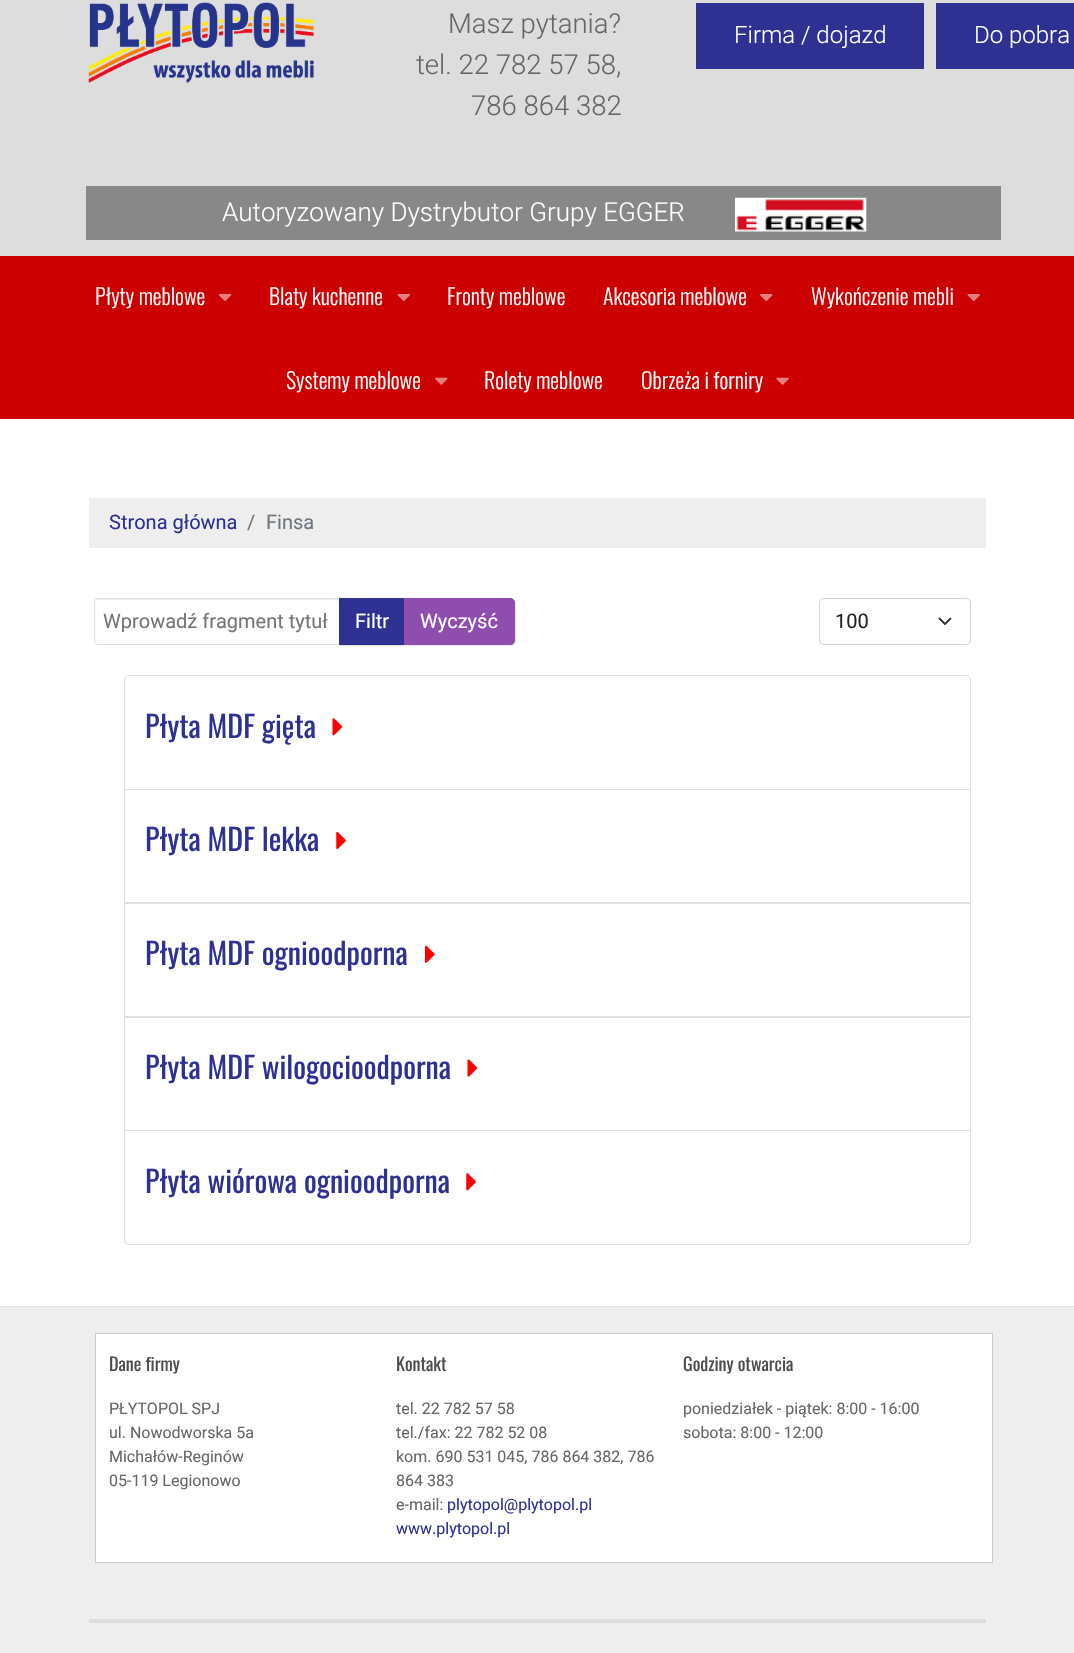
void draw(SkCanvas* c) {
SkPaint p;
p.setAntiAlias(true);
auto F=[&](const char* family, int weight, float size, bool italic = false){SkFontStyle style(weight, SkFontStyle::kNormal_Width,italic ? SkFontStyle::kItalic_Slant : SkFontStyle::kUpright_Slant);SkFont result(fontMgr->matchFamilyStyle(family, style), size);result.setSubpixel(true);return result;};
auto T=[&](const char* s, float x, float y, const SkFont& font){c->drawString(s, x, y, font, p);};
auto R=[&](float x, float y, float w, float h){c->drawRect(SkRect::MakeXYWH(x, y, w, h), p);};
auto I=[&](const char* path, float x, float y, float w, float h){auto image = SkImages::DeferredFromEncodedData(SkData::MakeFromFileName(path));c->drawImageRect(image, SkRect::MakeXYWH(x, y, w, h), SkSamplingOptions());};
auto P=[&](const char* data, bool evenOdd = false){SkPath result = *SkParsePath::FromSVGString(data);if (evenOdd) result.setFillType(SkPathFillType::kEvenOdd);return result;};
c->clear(0xffffffff);
p.setColor(0xffdddddd);
R(0,0,1074,256);
I("1.png",88,2,226,81);
auto f1 = F("Roboto",300,27.5);
p.setColor(0xff666666);
T("Masz pytania?",448,33,f1);
T("tel. 22 782 57 58,",416,74,f1);
T("786 864 382",471,115,f1);
p.setColor(0xff2e3192);
R(696,3,228,66);
auto f2 = F("Roboto",300,24);
p.setColor(0xffffffff);
T("Firma / dojazd",734,43,f2);
p.setColor(0xff2e3192);
R(936,3,138,66);
p.setColor(0xffffffff);
T("Do pobra",974,43,f2);
p.setColor(0xff888888);
R(86,186,915,54);
auto f3 = F("Roboto",300,26);
p.setColor(0xffffffff);
T("Autoryzowany Dystrybutor Grupy EGGER",222,221,f3);
I("2.png",735,197,132,35);
p.setColor(0xffcc0000);
R(0,256,1074,163);
auto f4 = F("Oswald",300,22);
p.setColor(0xffffffff);
T("Płyty meblowe",95,305,f4);
I("3.png",218,294,14,7);
T("Blaty kuchenne",269,305,f4);
I("4.png",397,294,13,7);
T("Fronty meblowe",447,305,f4);
T("Akcesoria meblowe",603,305,f4);
I("5.png",760,294,13,7);
T("Wykończenie mebli",811,305,f4);
I("4.png",967,294,13,7);
T("Systemy meblowe",286,389,f4);
I("6.png",435,377,13,8);
T("Rolety meblowe",484,389,f4);
T("Obrzeża i forniry",641,389,f4);
I("7.png",776,377,13,8);
p.setColor(0xffeeeeee);
R(89,498,897,50);
auto f5 = F("Roboto",400,20);
p.setColor(0xff2e3192);
T("Strona główna",109,529,f5);
p.setColor(0xff6c757d);
T("/",247,529,f5);
T("Finsa",266,529,f5);
p.setColor(0xffececec);
c->drawPath(P("M98 600h238c2 0 3 1 3 2c0-2-1-3-3-3h-238l-3 1v2c0-1 1-2 3-2z"),p);
p.setStroke(true);
p.setStrokeWidth(1);
p.setColor(0xffdddddd);
c->drawRoundRect(SkRect::MakeXYWH(94.5,598.5,245,46),3.5,3.5,p);
p.setStroke(false);
p.setColor(0xff757575);
T("Wprowadź fragment tytuł",103,628,f5);
p.setColor(0x1a000000);
p.setMaskFilter(SkMaskFilter::MakeBlur(kNormal_SkBlurStyle, .5));
c->drawRect(SkRect::MakeXYWH(340,599,66,47),p);
p.setMaskFilter(nullptr);
p.setColor(0xff2e3192);
R(339,598,65,47);
p.setColor(0xffffffff);
T("Filtr",355,628,f5);
p.setColor(0x1a000000);
p.setMaskFilter(SkMaskFilter::MakeBlur(kNormal_SkBlurStyle, .5));
c->drawRoundRect(SkRect::MakeXYWH(405,599,111,47),5,5,p);
p.setMaskFilter(nullptr);
p.setColor(0xff8f4dae);
c->drawPath(P("M404 598h106c3 0 5 2 5 5v37c0 3-2 5-5 5h-106z"),p);
p.setColor(0xffffffff);
T("Wyczyść",420,628,f5);
p.setStroke(true);
p.setStrokeWidth(1.9);
p.setStrokeCap(SkPaint::kRound_Cap);
p.setStrokeJoin(SkPaint::kRound_Join);
p.setColor(0xff343a40);
c->drawPath(P("M939.5 618.5l5.5 5.5l5.5-5.5"),p);
p.setStrokeWidth(1);
p.setStrokeCap(SkPaint::kButt_Cap);
p.setStrokeJoin(SkPaint::kMiter_Join);
p.setColor(0xffced4da);
c->drawRoundRect(SkRect::MakeXYWH(819.5,598.5,151,46),4.5,4.5,p);
p.setStroke(false);
p.setColor(0xff212529);
T("100",835,628,f5);
p.setStroke(true);
p.setColor(0xffdfdfdf);
c->drawPath(P("M129 675.5h837c2.5 0 4.5 2 4.5 4.5v109.5h-846v-109.5c0-2.5 2-4.5 4.5-4.5z"),p);
auto f6 = F("Oswald",400,30);
p.setStroke(false);
p.setColor(0xff2e3192);
T("Płyta MDF gięta",145,738,f6);
I("8.png",332,718,11,18);
p.setColor(0xffdfdfdf);
c->drawPath(P("M971 790v114l-1-2v-112z"),p);
p.setColor(0x1f000000);
c->drawPath(P("M971 904h-847l1-2h845z"),p);
c->drawPath(P("M124 904v-114h1v112z"),p);
p.setColor(0xff2e3192);
T("Płyta MDF lekka",145,851,f6);
I("9.png",336,832,10,18);
p.setColor(0xffdfdfdf);
c->drawPath(P("M971 904v114l-1-2v-112z"),p);
p.setColor(0x1f000000);
c->drawPath(P("M971 1018h-847l1-2h845z"),p);
c->drawPath(P("M124 1018v-114h1v112z"),p);
p.setColor(0xff2e3192);
T("Płyta MDF ognioodporna",145,965,f6);
I("10.png",425,945,10,18);
p.setColor(0xffdfdfdf);
c->drawPath(P("M971 1018v113l-1-1v-112z"),p);
p.setColor(0x1f000000);
c->drawPath(P("M971 1131h-847l1-1h845z"),p);
c->drawPath(P("M124 1131v-113h1v112z"),p);
p.setColor(0xff2e3192);
T("Płyta MDF wilogocioodporna",145,1079,f6);
I("11.png",467,1059,11,18);
p.setColor(0xffdfdfdf);
c->drawPath(P("M124 1131h847v109c0 3-2 5-5 5h-837c-3 0-5-2-5-5zm1 0h845v109c0 2-2 4-4 4h-837c-2 0-4-2-4-4z",true),p);
p.setColor(0xff2e3192);
T("Płyta wiórowa ognioodporna",145,1193,f6);
I("12.png",466,1173,10,18);
p.setColor(0xffeeeeee);
R(0,1307,1074,346);
p.setColor(0xffe2e2e2);
R(0,1306,1074,1);
p.setColor(0xffffffff);
c->drawRect(SkRect::MakeXYWH(95.5,1333.5,897,229),p);
p.setStroke(true);
p.setColor(0xffcccccc);
c->drawRect(SkRect::MakeXYWH(95.5,1333.5,897,229),p);
auto f7 = F("Oswald",400,18);
p.setStroke(false);
p.setColor(0xff4d4d4d);
T("Dane firmy",109,1371,f7);
auto f8 = F("Roboto",400,16);
p.setColor(0xff666666);
T("PŁYTOPOL SPJ",109,1414,f8);
T("ul. Nowodworska 5a",109,1438,f8);
T("Michałów-Reginów",109,1462,f8);
T("05-119 Legionowo",109,1486,f8);
p.setColor(0xff4d4d4d);
T("Kontakt",396,1371,f7);
p.setColor(0xff666666);
T("tel. 22 782 57 58",396,1414,f8);
T("tel./fax: 22 782 52 08",396,1438,f8);
T("kom. 690 531 045, 786 864 382, 786",396,1462,f8);
T("864 383",396,1486,f8);
T("e-mail:",396,1510,f8);
p.setColor(0xff2e3192);
T("plytopol@plytopol.pl",447,1510,f8);
T("www.plytopol.pl",396,1534,f8);
p.setColor(0xff4d4d4d);
T("Godziny otwarcia",683,1371,f7);
p.setColor(0xff666666);
T("poniedziałek - piątek: 8:00 - 16:00",683,1414,f8);
T("sobota: 8:00 - 12:00",683,1438,f8);
p.setColor(0xffdddddd);
R(89,1619,897,4);
}
